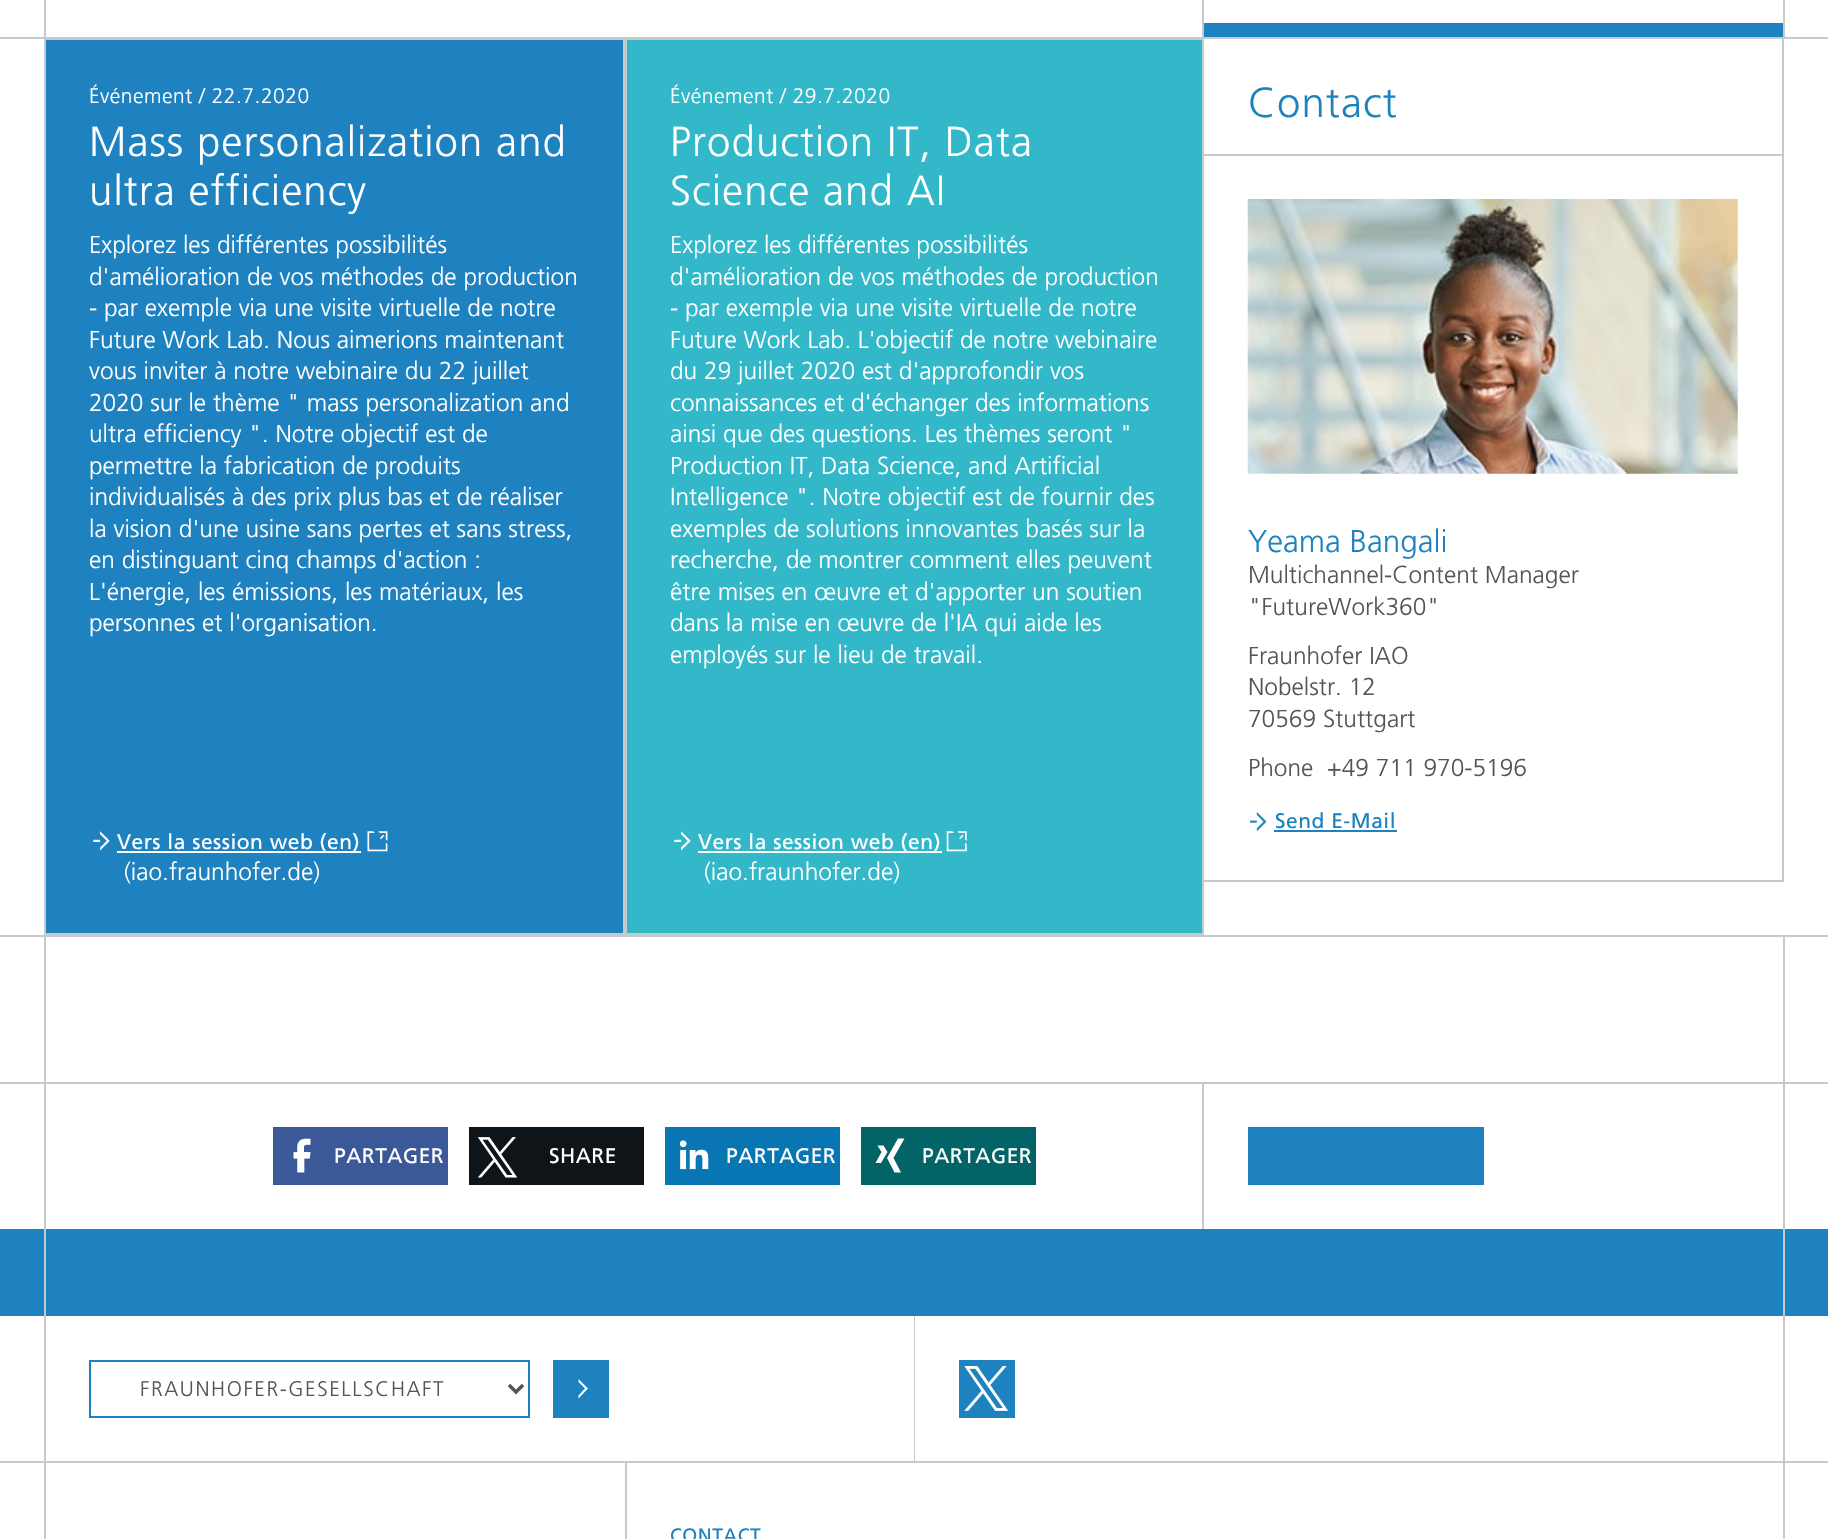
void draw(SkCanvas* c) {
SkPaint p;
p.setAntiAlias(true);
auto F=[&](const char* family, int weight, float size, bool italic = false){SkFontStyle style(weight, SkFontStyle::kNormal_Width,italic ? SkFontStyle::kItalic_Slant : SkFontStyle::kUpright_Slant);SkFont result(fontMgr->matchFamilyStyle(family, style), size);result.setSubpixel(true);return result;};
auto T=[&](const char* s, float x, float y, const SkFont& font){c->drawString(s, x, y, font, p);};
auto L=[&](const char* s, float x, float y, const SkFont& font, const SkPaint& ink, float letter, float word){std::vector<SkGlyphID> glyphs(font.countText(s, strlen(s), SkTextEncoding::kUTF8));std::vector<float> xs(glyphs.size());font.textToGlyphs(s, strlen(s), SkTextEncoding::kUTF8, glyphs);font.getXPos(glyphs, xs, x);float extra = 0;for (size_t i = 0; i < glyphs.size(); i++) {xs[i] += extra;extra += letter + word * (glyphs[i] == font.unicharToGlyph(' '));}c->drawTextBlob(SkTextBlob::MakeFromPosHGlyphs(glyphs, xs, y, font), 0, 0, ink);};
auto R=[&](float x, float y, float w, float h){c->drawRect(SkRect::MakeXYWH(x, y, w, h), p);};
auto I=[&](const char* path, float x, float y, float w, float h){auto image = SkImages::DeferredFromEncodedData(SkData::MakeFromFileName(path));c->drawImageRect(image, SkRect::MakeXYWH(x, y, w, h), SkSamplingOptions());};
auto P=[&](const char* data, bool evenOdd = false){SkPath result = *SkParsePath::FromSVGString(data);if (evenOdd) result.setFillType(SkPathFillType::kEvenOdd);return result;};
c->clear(0xffffffff);
p.setColor(0xffc7cacc);
R(1783,0,2,37);
R(44,0,2,37);
R(1202,0,2,37);
p.setColor(0xff1f82c0);
R(1204,23,579,14);
p.setColor(0xffc7cacc);
R(0,37,1204,2);
R(1204,37,624,2);
p.setStroke(true);
p.setStrokeWidth(2);
c->drawRect(SkRect::MakeXYWH(45,40,579,894),p);
p.setStroke(false);
p.setColor(0xff1f82c0);
R(46,40,577,893);
auto f1 = F("Frutiger",300,21);
p.setColor(0xffffffff);
L("Événement / 22.7.2020",89,103,f1,p,.5,0);
auto f2 = F("Frutiger",300,42);
L("Mass personalization and",89,156,f2,p,1.05,0);
L("ultra efficiency",89,205,f2,p,1.05,0);
auto f3 = F("Frutiger",300,24.5);
T("Explorez les différentes possibilités",89,253,f3);
T("d'amélioration de vos méthodes de production",89,285,f3);
T("- par exemple via une visite virtuelle de notre",89,316,f3);
T("Future Work Lab. Nous aimerions maintenant",89,348,f3);
T("vous inviter à notre webinaire du 22 juillet",89,379,f3);
T("2020 sur le thème \" mass personalization and",89,411,f3);
T("ultra efficiency \". Notre objectif est de",89,442,f3);
T("permettre la fabrication de produits",89,474,f3);
T("individualisés à des prix plus bas et de réaliser",89,505,f3);
T("la vision d'une usine sans pertes et sans stress,",89,537,f3);
T("en distinguant cinq champs d'action :",89,568,f3);
T("L'énergie, les émissions, les matériaux, les",89,600,f3);
T("personnes et l'organisation.",89,631,f3);
I("1.png",93,831,17,20);
R(117,851,244,2);
auto f4 = F("Frutiger",400,21);
L("Vers la session web (en)",117,849,f4,p,.5,0);
I("2.png",367,831,21,21);
T("(iao.fraunhofer.de)",124,880,f3);
p.setStroke(true);
p.setColor(0xffc7cacc);
c->drawRect(SkRect::MakeXYWH(626,40,577,894),p);
p.setStroke(false);
p.setColor(0xff33b8ca);
R(627,40,575,893);
p.setColor(0xffffffff);
L("Événement / 29.7.2020",670,103,f1,p,.5,0);
L("Production IT, Data",670,156,f2,p,1.05,0);
L("Science and AI",670,205,f2,p,1.05,0);
T("Explorez les différentes possibilités",670,253,f3);
T("d'amélioration de vos méthodes de production",670,285,f3);
T("- par exemple via une visite virtuelle de notre",670,316,f3);
T("Future Work Lab. L'objectif de notre webinaire",670,348,f3);
T("du 29 juillet 2020 est d'approfondir vos",670,379,f3);
T("connaissances et d'échanger des informations",670,411,f3);
T("ainsi que des questions. Les thèmes seront \"",670,442,f3);
T("Production IT, Data Science, and Artificial",670,474,f3);
T("Intelligence \". Notre objectif est de fournir des",670,505,f3);
T("exemples de solutions innovantes basés sur la",670,537,f3);
T("recherche, de montrer comment elles peuvent",670,568,f3);
T("être mises en œuvre et d'apporter un soutien",670,600,f3);
T("dans la mise en œuvre de l'IA qui aide les",670,631,f3);
T("employés sur le lieu de travail.",670,663,f3);
I("3.png",674,831,17,20);
R(698,851,244,2);
L("Vers la session web (en)",698,849,f4,p,.5,0);
I("4.png",946,831,21,21);
T("(iao.fraunhofer.de)",704,880,f3);
p.setColor(0xffc7cacc);
R(44,1084,2,232);
R(1782,37,2,845);
R(1204,880,579,2);
R(1204,154,578,2);
p.setColor(0xff1f82c0);
L("Contact",1248,117,f2,p,1.05,0);
I("5.png",1247,199,491,275);
auto f5 = F("Frutiger",300,31.5);
T("Yeama Bangali",1248,552,f5);
p.setColor(0xff555555);
T("Multichannel-Content Manager",1248,583,f3);
T("\"FutureWork360\"",1248,615,f3);
T("Fraunhofer IAO",1248,664,f3);
T("Nobelstr. 12",1248,695,f3);
T("70569 Stuttgart",1248,727,f3);
T("Phone  +49 711 970-5196",1248,776,f3);
I("6.png",1250,812,17,20);
p.setColor(0xff1f82c0);
L("Send E-Mail",1275,828,f4,p,.5,0);
R(1274,830,123,2);
p.setColor(0xffc7cacc);
R(0,935,46,2);
R(44,935,1784,2);
R(44,935,2,147);
R(0,1082,46,2);
R(44,1082,1784,2);
R(1783,935,2,381);
R(1202,1083,2,146);
p.setColor(0xff3b5998);
R(273,1127,175,58);
I("7.png",293,1138,18,35);
p.setColor(0xffffffff);
L("PARTAGER",334,1163,f4,p,.5,0);
p.setColor(0xff0f1419);
R(469,1127,175,58);
I("8.png",477,1137,41,41);
p.setColor(0xffffffff);
L("SHARE",549,1163,f4,p,.5,0);
p.setColor(0xff0976b4);
R(665,1127,175,58);
I("9.png",679,1140,30,30);
p.setColor(0xffffffff);
L("PARTAGER",726,1163,f4,p,.5,0);
p.setColor(0xff026466);
R(861,1127,175,58);
p.setColor(0xffffffff);
c->drawPath(P("M877.5 1145.5l4 6.5l-6 11h5.5l6.5-11l-4-6.5zm27-7h-6.5l-11 19.5l7.5 14.5h6.5l-7.5-14.5z"),p);
L("PARTAGER",922,1163,f4,p,.5,0);
p.setColor(0xff1f82c0);
R(1248,1127,236,58);
R(46,1229,1737,87);
R(0,1229,44,87);
R(1785,1229,43,87);
p.setColor(0xffc7cacc);
R(914,1316,1,147);
R(1783,1316,2,223);
R(44,1461,1741,2);
R(44,1316,2,147);
p.setStroke(true);
p.setStrokeWidth(3.5);
p.setColor(0xff555555);
c->drawPath(P("M509 1385l7 7l7-7"),p);
p.setStrokeWidth(2);
p.setColor(0xff1f82c0);
c->drawRect(SkRect::MakeXYWH(90,1361,439,56),p);
p.setStroke(false);
p.setColor(0xff555555);
L("FRAUNHOFER-GESELLSCHAFT",140,1396,f1,p,1.6,0);
p.setColor(0xff1f82c0);
R(553,1360,56,58);
p.setColor(0xffffffff);
c->drawPath(P("M578.5 1395.5v3l9.5-10l-9.5-9.5v3l6.5 6.5z"),p);
p.setColor(0xff1f82c0);
R(959,1360,56,58);
I("10.png",964,1366,44,45);
p.setColor(0xffc7cacc);
R(0,1461,44,2);
R(1785,1461,43,2);
R(44,1463,2,76);
R(625,1463,2,76);
auto f6 = F("Frutiger",400,19.25);
p.setColor(0xff1f82c0);
L("CONTACT",670,1542,f6,p,.5,0);
}
